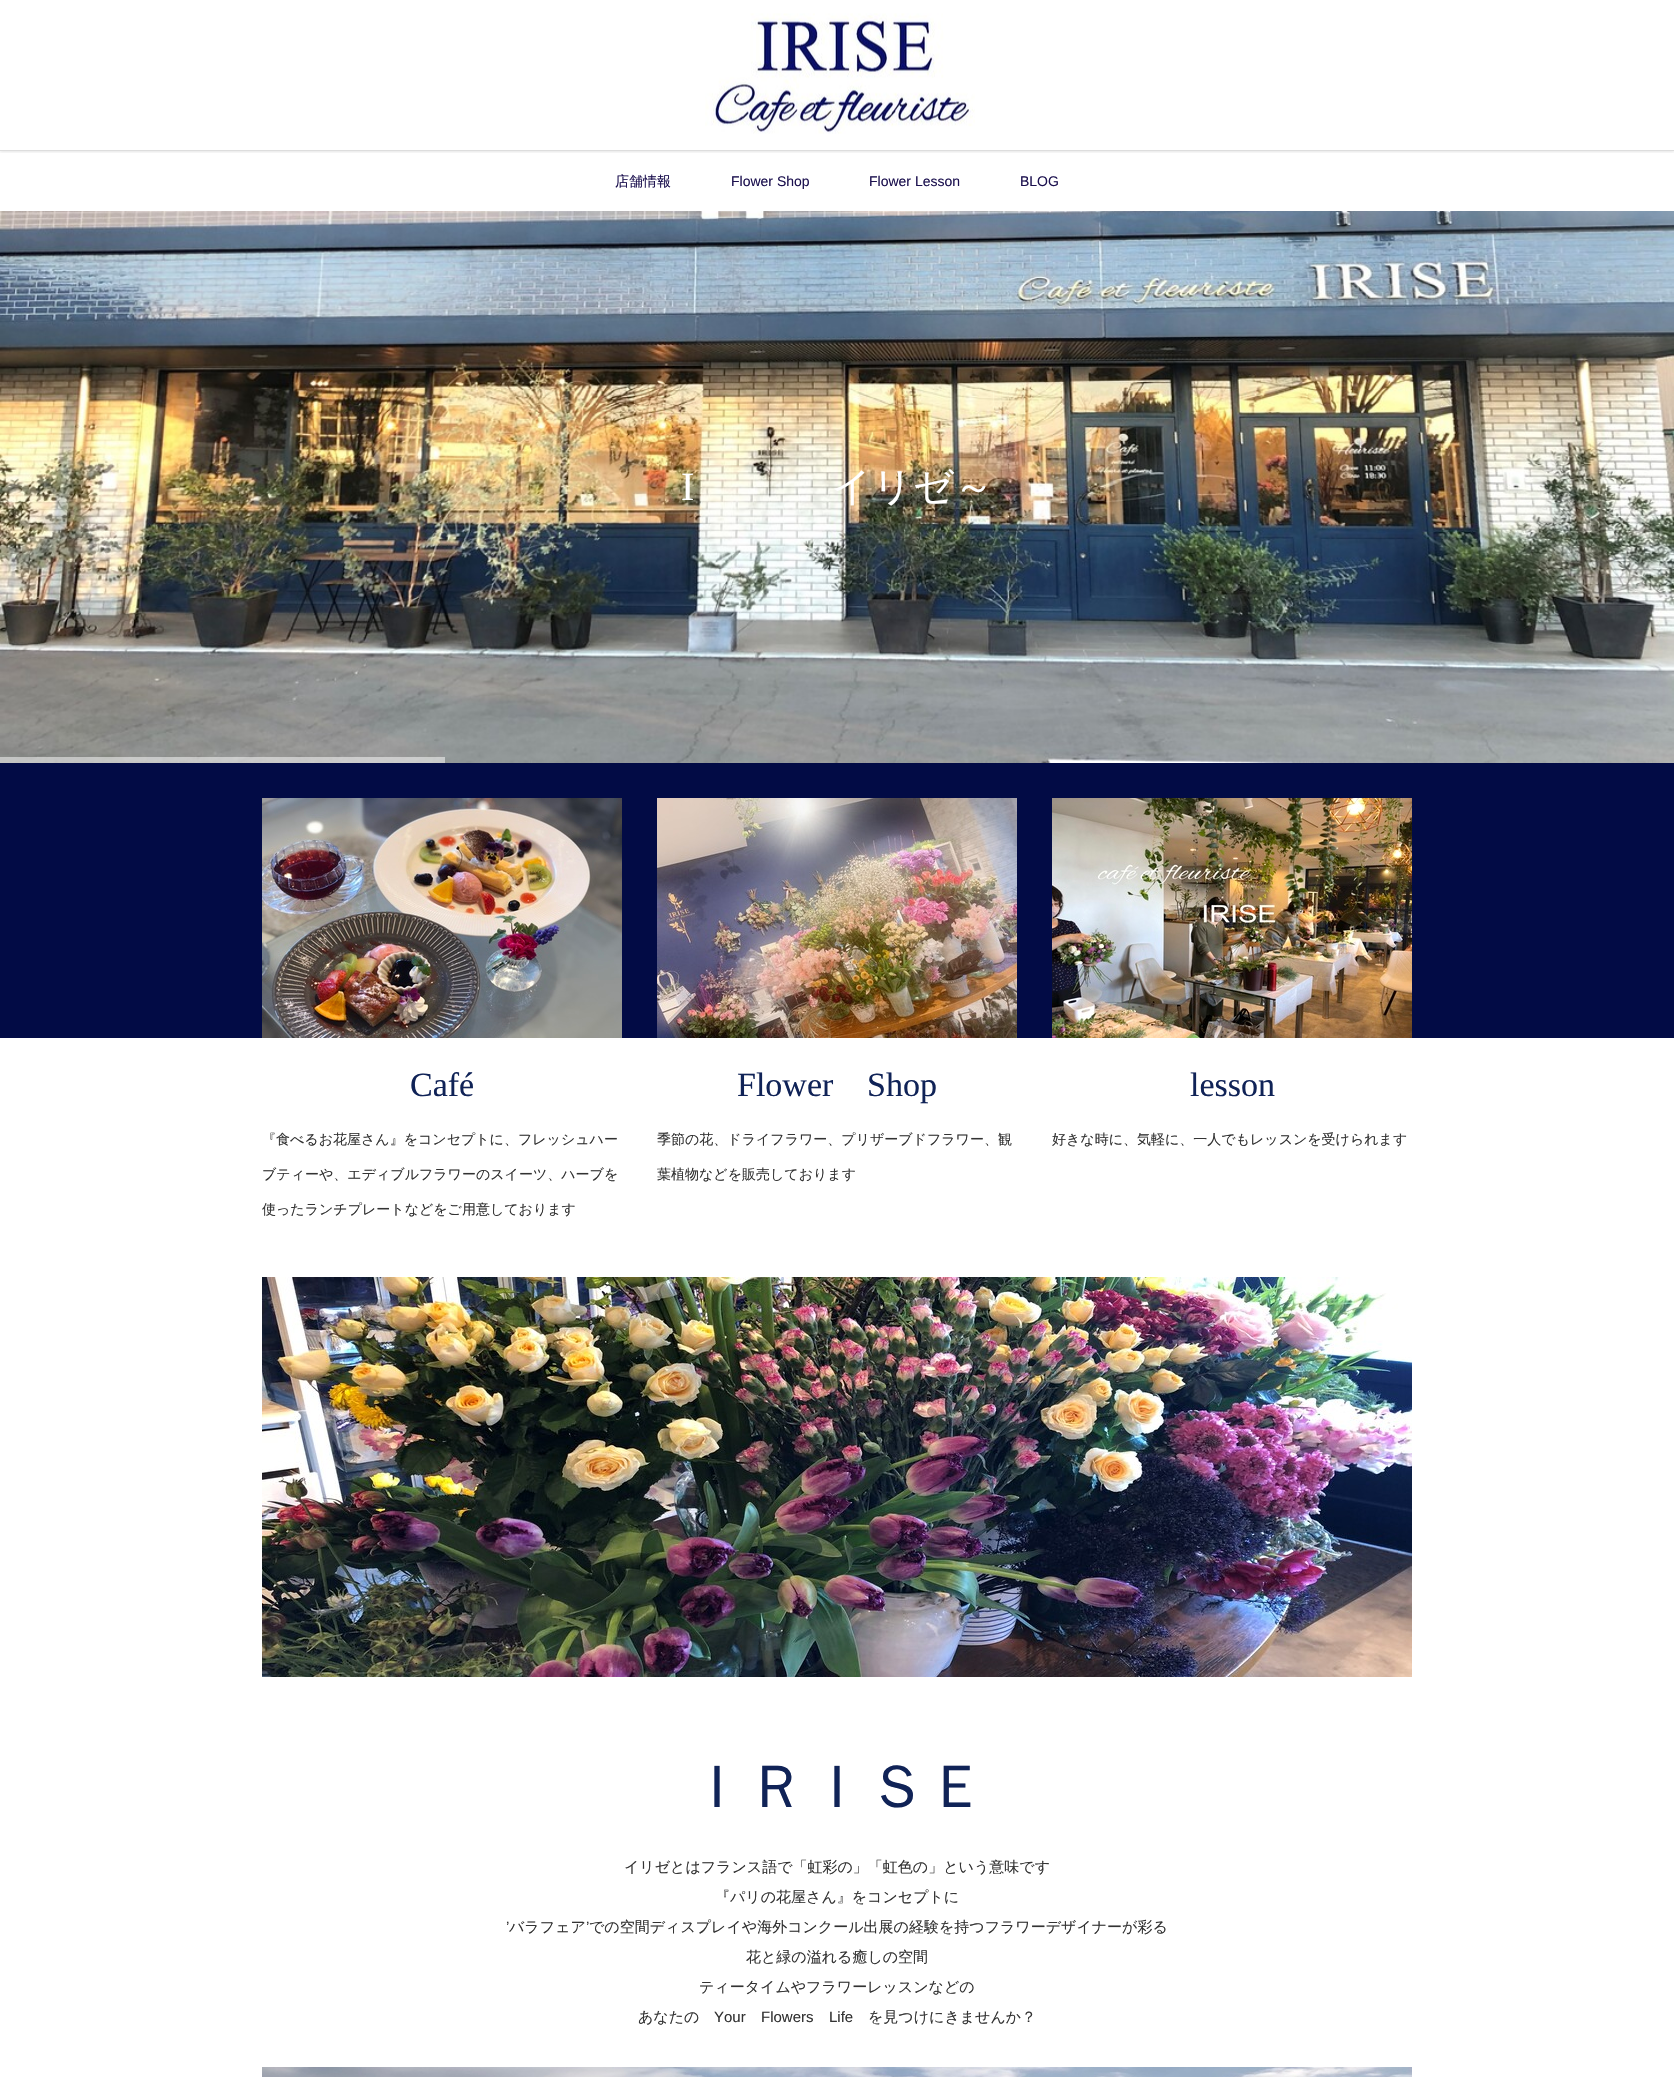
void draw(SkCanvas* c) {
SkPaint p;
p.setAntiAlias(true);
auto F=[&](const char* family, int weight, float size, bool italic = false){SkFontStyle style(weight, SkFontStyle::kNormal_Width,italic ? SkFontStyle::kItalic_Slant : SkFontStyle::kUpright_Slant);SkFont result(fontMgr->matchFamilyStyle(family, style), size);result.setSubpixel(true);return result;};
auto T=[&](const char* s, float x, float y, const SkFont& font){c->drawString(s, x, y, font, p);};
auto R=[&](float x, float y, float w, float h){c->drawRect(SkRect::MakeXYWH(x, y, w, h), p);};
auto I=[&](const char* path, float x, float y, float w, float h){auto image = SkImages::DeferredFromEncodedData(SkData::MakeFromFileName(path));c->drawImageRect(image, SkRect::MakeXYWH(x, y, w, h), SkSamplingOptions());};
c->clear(0xffffffff);
c->save();
c->clipRect(SkRect::MakeXYWH(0,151,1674,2));
p.setColor(0x1a000000);
p.setMaskFilter(SkMaskFilter::MakeBlur(kNormal_SkBlurStyle, 1.5));
c->drawRect(SkRect::MakeXYWH(0,1,1674,151),p);
p.setMaskFilter(nullptr);
c->restore();
p.setColor(0xffdddddd);
R(0,150,1674,1);
I("1.png",705,13,270,121);
auto f1 = F("WenQuanYi Zen Hei",500,14);
p.setColor(0xff1c114f);
T("店舗情報",615,186,f1);
auto f2 = F("Liberation Sans",400,14);
T("Flower Shop",731,186,f2);
T("Flower Lesson",869,186,f2);
T("BLOG",1020,186,f2);
I("2.png",0,211,1674,552);
auto f3 = F("Liberation Serif",400,40);
p.setColor(0xffffffff);
T("I",681,500,f3);
auto f4 = F("WenQuanYi Zen Hei",500,40);
T("イリゼ～",831,500,f4);
p.setColor(0x80ffffff);
R(0,757,445,6);
p.setColor(0xff020b45);
R(0,763,1674,275);
I("3.png",262,798,360,240);
I("4.png",657,798,360,240);
I("5.png",1052,798,360,240);
auto f5 = F("Liberation Serif",400,34);
p.setColor(0xff102357);
T("Café",410,1096,f5);
p.setColor(0xff333333);
T("『食べるお花屋さん』をコンセプトに、フレッシュハー",262,1144,f1);
T("ブティーや、エディブルフラワーのスイーツ、ハーブを",262,1179,f1);
T("使ったランチプレートなどをご用意しております",262,1214,f1);
p.setColor(0xff102357);
T("Flower",737,1096,f5);
T("Shop",867,1096,f5);
p.setColor(0xff333333);
T("季節の花、ドライフラワー、プリザーブドフラワー、観",657,1144,f1);
T("葉植物などを販売しております",657,1179,f1);
p.setColor(0xff102357);
T("lesson",1190,1096,f5);
p.setColor(0xff333333);
T("好きな時に、気軽に、一人でもレッスンを受けられます",1052,1144,f1);
I("6.png",262,1277,1150,400);
auto f6 = F("WenQuanYi Zen Hei",500,60);
p.setColor(0xff102357);
T("ＩＲＩＳＥ",687,1807,f6);
auto f7 = F("WenQuanYi Zen Hei",500,15);
p.setColor(0xff333333);
T("イリゼとはフランス語で「虹彩の」「虹色の」という意味です",624,1872,f7);
T("『パリの花屋さん』をコンセプトに",715,1902,f7);
auto f8 = F("Liberation Sans",400,15);
T("’",506,1932,f8);
T("バラフェア",509,1932,f7);
T("’",586,1932,f8);
T("での空間ディスプレイや海外コンクール出展の経験を持つフラワーデザイナーが彩る",589,1932,f7);
T("花と緑の溢れる癒しの空間",746,1962,f7);
T("ティータイムやフラワーレッスンなどの",699,1992,f7);
T("あなたの",638,2022,f7);
T("Your",714,2022,f8);
T("Flowers",761,2022,f8);
T("Life",829,2022,f8);
T("を見つけにきませんか？",868,2022,f7);
I("7.png",262,2067,1150,10);
}
